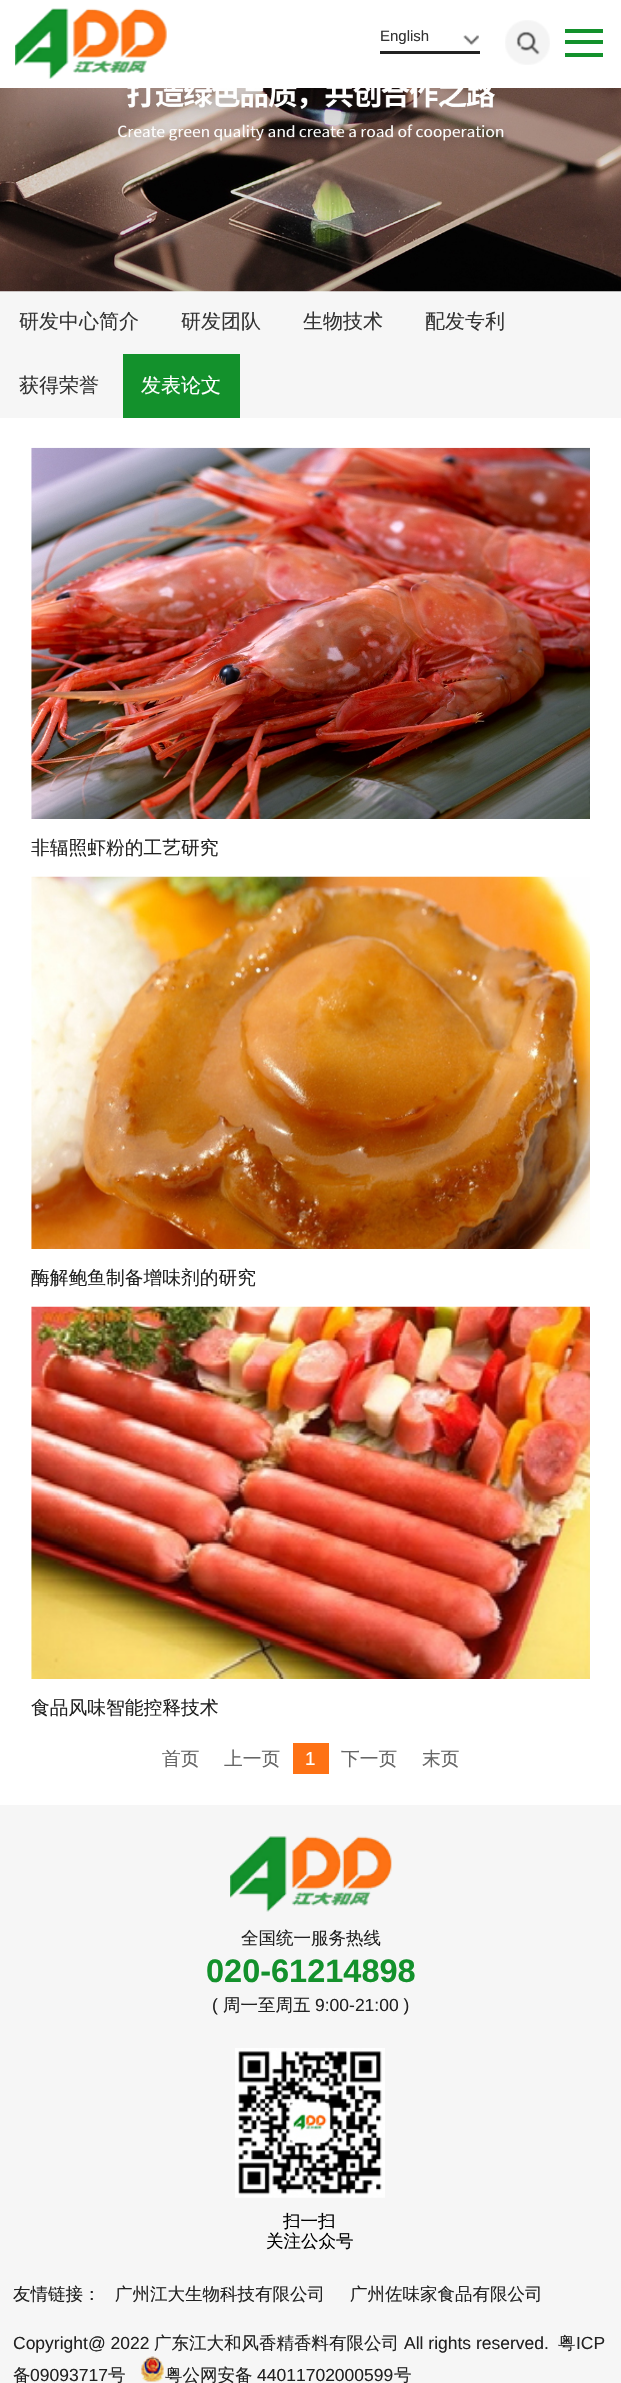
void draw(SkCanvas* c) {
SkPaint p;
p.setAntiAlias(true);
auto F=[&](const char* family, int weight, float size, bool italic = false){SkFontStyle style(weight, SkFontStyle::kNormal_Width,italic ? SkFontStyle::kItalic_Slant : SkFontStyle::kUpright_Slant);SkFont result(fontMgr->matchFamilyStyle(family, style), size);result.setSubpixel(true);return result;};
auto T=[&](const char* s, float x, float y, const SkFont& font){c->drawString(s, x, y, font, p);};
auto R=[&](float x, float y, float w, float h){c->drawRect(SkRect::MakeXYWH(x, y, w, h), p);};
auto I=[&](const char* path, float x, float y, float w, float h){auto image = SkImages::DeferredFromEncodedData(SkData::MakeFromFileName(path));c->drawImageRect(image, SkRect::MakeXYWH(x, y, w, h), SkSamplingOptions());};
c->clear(0xffffffff);
I("1.png",15,8,152,71);
I("2.png",463,35,16,11);
p.setColor(0xff222222);
R(380,51,100,3);
auto f1 = F("Liberation Sans",400,15);
p.setColor(0xff333333);
T("English",380,41,f1);
I("3.png",505,20,45,45);
p.setColor(0xff13912c);
R(565,40,38,4);
R(565,29,38,4);
R(565,53,38,4);
p.setColor(0xfff6f6f6);
R(0,291,621,127);
I("4.png",0,88,621,204);
auto f2 = F("WenQuanYi Zen Hei",500,20);
p.setColor(0xff333333);
T("研发中心简介",19,328,f2);
T("研发团队",181,328,f2);
T("生物技术",303,328,f2);
T("配发专利",425,328,f2);
T("获得荣誉",19,392,f2);
p.setColor(0xff13912c);
R(123,354,117,64);
p.setColor(0xffffffff);
T("发表论文",141,392,f2);
I("5.png",31,447,559,372);
auto f3 = F("WenQuanYi Zen Hei",500,18.75);
p.setColor(0xff222222);
T("非辐照虾粉的工艺研究",31,854,f3);
I("6.png",31,876,559,373);
T("酶解鲍鱼制备增味剂的研究",31,1284,f3);
I("7.png",31,1306,559,373);
T("食品风味智能控释技术",31,1714,f3);
p.setColor(0xff666666);
T("首页",162,1765,f3);
T("上一页",224,1765,f3);
p.setColor(0xfffe7215);
R(293,1743,36,31);
auto f4 = F("Liberation Sans",400,18.75);
p.setColor(0xffffffff);
T("1",305,1765,f4);
p.setColor(0xff666666);
T("下一页",341,1765,f3);
T("末页",422,1765,f3);
p.setColor(0xfff6f6f6);
R(0,1805,621,578);
I("8.png",230,1836,162,76);
auto f5 = F("WenQuanYi Zen Hei",500,17.5);
p.setColor(0xff222222);
T("全国统一服务热线",241,1944,f5);
auto f6 = F("Liberation Sans",700,32.5);
p.setColor(0xff13912c);
T("020-61214898",206,1982,f6);
auto f7 = F("Liberation Sans",400,17.5);
p.setColor(0xff222222);
T("(",212,2011,f7);
T("周一至周五",223,2011,f5);
T("9:00-21:00 )",315,2011,f7);
I("9.png",235,2048,150,150);
p.setColor(0xff000000);
T("扫一扫",283,2227,f5);
T("关注公众号",266,2247,f5);
p.setColor(0xff222222);
T("友情链接：",13,2300,f5);
T("广州江大生物科技有限公司",115,2300,f5);
T("广州佐味家食品有限公司",350,2300,f5);
T("Copyright@ 2022",13,2349,f7);
T("广东江大和风香精香料有限公司",154,2349,f5);
T("All rights reserved.",404,2349,f7);
T("粤",558,2349,f5);
T("ICP",576,2349,f7);
T("备",13,2381,f5);
T("09093717",30,2381,f7);
T("号",108,2381,f5);
I("10.png",141,2356,23,26);
T("粤公网安备",165,2381,f5);
T("44011702000599",257,2381,f7);
T("号",394,2381,f5);
}
